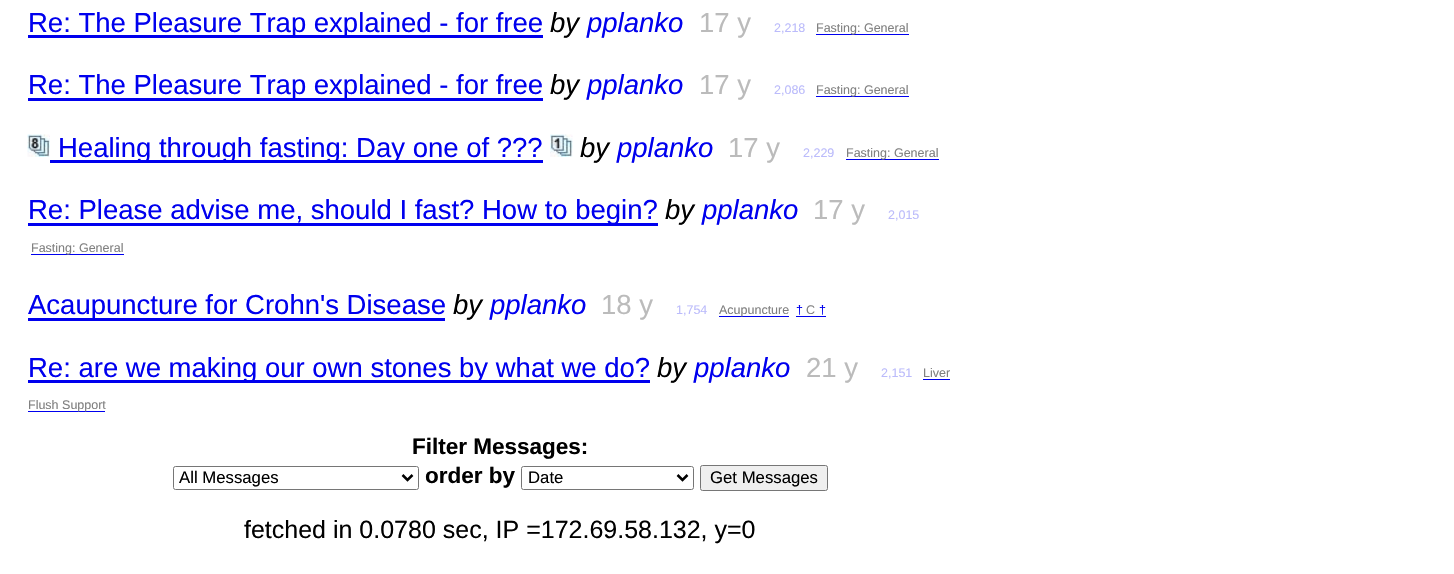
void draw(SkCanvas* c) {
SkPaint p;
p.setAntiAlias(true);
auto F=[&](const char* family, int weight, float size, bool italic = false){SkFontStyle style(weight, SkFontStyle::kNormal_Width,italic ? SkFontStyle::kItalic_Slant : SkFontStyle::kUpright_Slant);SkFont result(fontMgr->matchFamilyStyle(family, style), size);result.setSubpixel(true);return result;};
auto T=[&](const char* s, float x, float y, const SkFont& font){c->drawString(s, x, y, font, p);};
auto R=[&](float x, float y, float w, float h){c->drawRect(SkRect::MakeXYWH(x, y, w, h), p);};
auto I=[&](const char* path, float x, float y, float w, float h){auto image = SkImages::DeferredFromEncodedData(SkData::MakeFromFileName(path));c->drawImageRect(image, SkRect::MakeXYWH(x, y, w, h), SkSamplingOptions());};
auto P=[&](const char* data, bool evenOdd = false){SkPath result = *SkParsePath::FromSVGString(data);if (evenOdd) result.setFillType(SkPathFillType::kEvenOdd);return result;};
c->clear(0xffffffff);
p.setColor(0xff0000ee);
R(28,35,515,3);
auto f1 = F("Liberation Sans",400,27.5);
T("Re: The Pleasure Trap explained - for free",28,32,f1);
auto f2 = F("Liberation Sans",400,27.5,true);
p.setColor(0xff000000);
T("by",550,32,f2);
p.setColor(0xff0000ee);
T("pplanko",587,32,f2);
p.setColor(0xffbbbbbb);
T("17 y",699,32,f1);
auto f3 = F("Liberation Sans",400,12.5);
p.setColor(0xffbbbbfb);
T("2,218",774,32,f3);
p.setColor(0xff0000ee);
R(816,34,93,1);
p.setColor(0xff808080);
T("Fasting: General",816,32,f3);
p.setColor(0xff0000ee);
R(28,98,515,3);
T("Re: The Pleasure Trap explained - for free",28,94,f1);
p.setColor(0xff000000);
T("by",550,94,f2);
p.setColor(0xff0000ee);
T("pplanko",587,94,f2);
p.setColor(0xffbbbbbb);
T("17 y",699,94,f1);
p.setColor(0xffbbbbfb);
T("2,086",774,94,f3);
p.setColor(0xff0000ee);
R(816,96,93,1);
p.setColor(0xff808080);
T("Fasting: General",816,94,f3);
I("1.png",27,134,23,23);
p.setColor(0xff0000ee);
R(50,160,493,3);
T("Healing through fasting: Day one of ?\077?",58,157,f1);
I("2.png",550,134,23,23);
p.setColor(0xff000000);
T("by",580,157,f2);
p.setColor(0xff0000ee);
T("pplanko",617,157,f2);
p.setColor(0xffbbbbbb);
T("17 y",728,157,f1);
p.setColor(0xffbbbbfb);
T("2,229",803,157,f3);
p.setColor(0xff0000ee);
R(846,159,93,1);
p.setColor(0xff808080);
T("Fasting: General",846,157,f3);
p.setColor(0xff0000ee);
R(28,223,630,3);
T("Re: Please advise me, should I fast? How to begin?",28,219,f1);
p.setColor(0xff000000);
T("by",665,219,f2);
p.setColor(0xff0000ee);
T("pplanko",702,219,f2);
p.setColor(0xffbbbbbb);
T("17 y",813,219,f1);
p.setColor(0xffbbbbfb);
T("2,015",888,219,f3);
p.setColor(0xff0000ee);
R(31,254,93,1);
p.setColor(0xff808080);
T("Fasting: General",31,252,f3);
p.setColor(0xff0000ee);
R(28,318,417,3);
T("Acaupuncture for Crohn's Disease",28,314,f1);
p.setColor(0xff000000);
T("by",453,314,f2);
p.setColor(0xff0000ee);
T("pplanko",490,314,f2);
p.setColor(0xffbbbbbb);
T("18 y",601,314,f1);
p.setColor(0xffbbbbfb);
T("1,754",676,314,f3);
p.setColor(0xff0000ee);
R(719,316,70,1);
p.setColor(0xff808080);
T("Acupuncture",719,314,f3);
p.setColor(0xff0000ee);
T("†",796,314,f3);
p.setColor(0xff808080);
T("C",806,314,f3);
p.setColor(0xff0000ee);
R(796,316,30,1);
T("†",819,314,f3);
R(28,380,622,3);
T("Re: are we making our own stones by what we do?",28,377,f1);
p.setColor(0xff000000);
T("by",657,377,f2);
p.setColor(0xff0000ee);
T("pplanko",694,377,f2);
p.setColor(0xffbbbbbb);
T("21 y",806,377,f1);
p.setColor(0xffbbbbfb);
T("2,151",881,377,f3);
p.setColor(0xff808080);
T("Liver",923,377,f3);
p.setColor(0xff0000ee);
R(923,379,27,1);
R(28,411,77,1);
p.setColor(0xff808080);
T("Flush Support",28,409,f3);
auto f4 = F("Liberation Sans",700,22.5);
p.setColor(0xff000000);
T("Filter Messages:",412,454,f4);
p.setStroke(true);
p.setStrokeWidth(1);
p.setColor(0xff767676);
c->drawRoundRect(SkRect::MakeXYWH(173.5,466.5,245,23),2,2,p);
p.setStrokeWidth(2.5);
p.setColor(0xff000000);
c->drawPath(P("M402.5 475l5 5l5-5"),p);
auto f5 = F("Liberation Sans",400,16.75);
p.setStroke(false);
T("All Messages",179,483,f5);
T("order by",425,483,f4);
p.setStroke(true);
p.setStrokeWidth(1);
p.setColor(0xff767676);
c->drawRoundRect(SkRect::MakeXYWH(521.5,466.5,172,23),2,2,p);
p.setStrokeWidth(2.5);
p.setColor(0xff000000);
c->drawPath(P("M677.5 475l5 5l5-5"),p);
p.setStroke(false);
T("Date",528,483,f5);
p.setColor(0xffefefef);
c->drawRoundRect(SkRect::MakeXYWH(700.5,465.5,127,25),2,2,p);
p.setStroke(true);
p.setStrokeWidth(1);
p.setColor(0xff767676);
c->drawRoundRect(SkRect::MakeXYWH(700.5,465.5,127,25),2,2,p);
p.setStroke(false);
p.setColor(0xff000000);
T("Get Messages",710,483,f5);
auto f6 = F("Liberation Sans",400,25);
T("fetched in 0.0780 sec, IP =172.69.58.132, y=0",244,538,f6);
}
